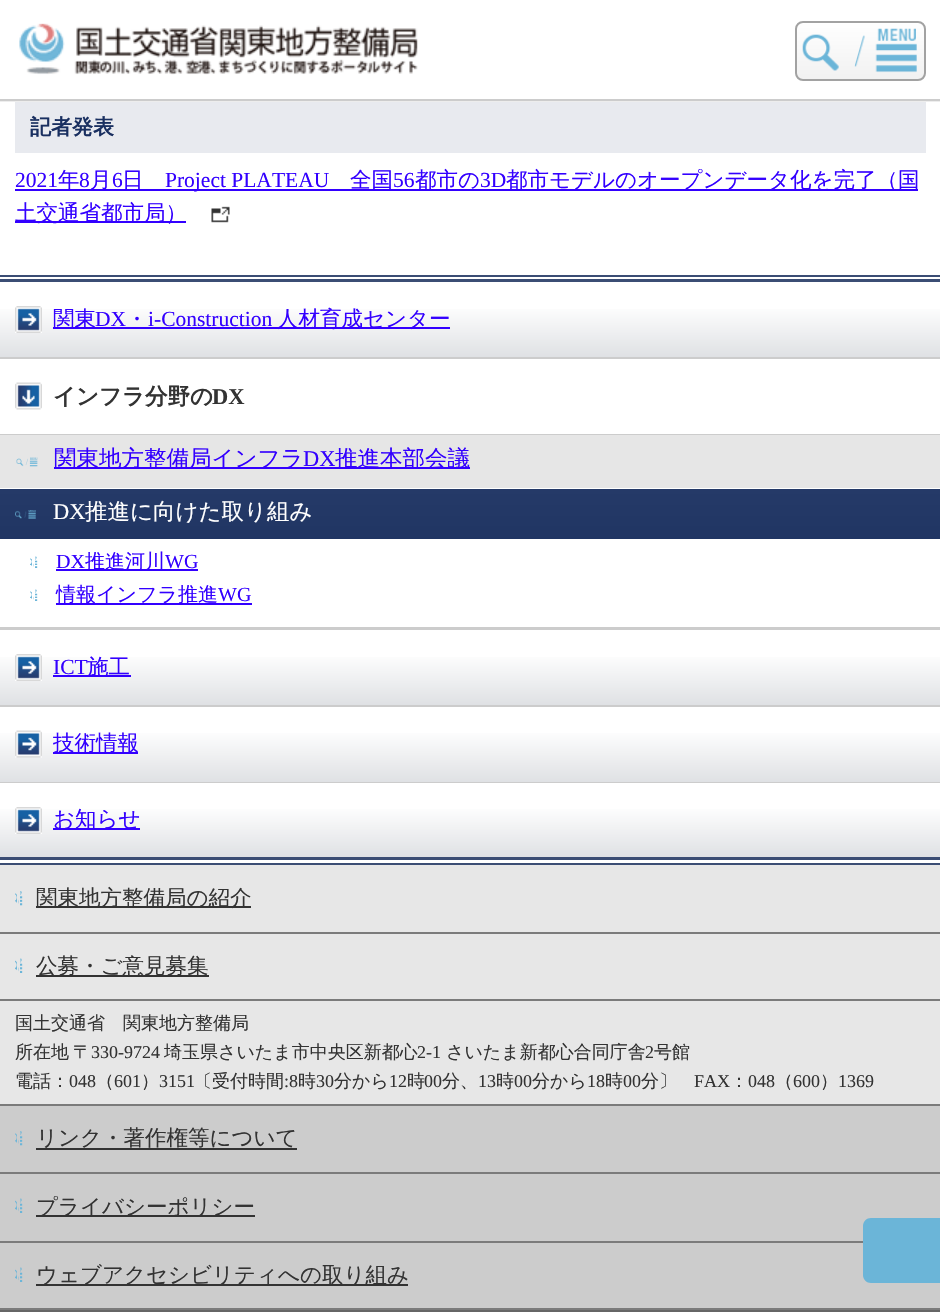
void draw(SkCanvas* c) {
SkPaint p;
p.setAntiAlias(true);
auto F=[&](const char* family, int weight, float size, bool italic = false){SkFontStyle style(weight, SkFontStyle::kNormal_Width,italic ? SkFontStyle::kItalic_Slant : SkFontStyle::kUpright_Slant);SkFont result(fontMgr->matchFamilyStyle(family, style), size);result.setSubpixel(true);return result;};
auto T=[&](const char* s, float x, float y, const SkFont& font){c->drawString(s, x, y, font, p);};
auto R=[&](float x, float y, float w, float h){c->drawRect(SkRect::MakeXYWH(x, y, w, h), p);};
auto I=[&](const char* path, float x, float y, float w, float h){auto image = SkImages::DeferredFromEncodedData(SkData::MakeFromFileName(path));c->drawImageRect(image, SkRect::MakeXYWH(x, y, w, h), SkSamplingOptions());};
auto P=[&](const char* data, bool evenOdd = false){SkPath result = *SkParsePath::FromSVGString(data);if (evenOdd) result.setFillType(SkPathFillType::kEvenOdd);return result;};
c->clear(0xffffffff);
p.setColor(0xffededed);
c->drawPath(P("M0 100v2h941v-100h-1v98z"),p);
p.setColor(0xffcccccc);
R(0,99,940,2);
I("1.png",19,23,399,52);
c->save();
c->clipPath(P("M803 21h115c4.5 0 8 3.5 8 8v44c0 4.5-3.5 8-8 8h-115c-4.5 0-8-3.5-8-8v-44c0-4.5 3.5-8 8-8z"),true);
{
const SkColor colors[] = {0xffffffff,0xfff1f1f1};
const float stops[] = {0,1};
const SkPoint ends[] = {{860,22}, {860,80}};
p.setShader(SkGradientShader::MakeLinear(ends, colors, stops, 2, SkTileMode::kClamp));
p.setAlpha(255);
}
R(795,23,131,57);
c->restore();
p.setStroke(true);
p.setStrokeWidth(2);
p.setShader(nullptr);
p.setColor(0xffa2a2a2);
c->drawRoundRect(SkRect::MakeXYWH(796,22,129,58),7,7,p);
I("2.png",802,28,115,45);
p.setStroke(false);
p.setColor(0xffe8eaef);
R(15,102,911,51);
auto f1 = F("WenQuanYi Zen Hei",700,21);
p.setColor(0xff192f60);
T("記者発表",30,134,f1);
auto f2 = F("Liberation Serif",400,21.5);
p.setColor(0xff3300ff);
T("2021",15,187,f2);
R(15,189,903,2);
auto f3 = F("WenQuanYi Zen Hei",500,21.5);
T("年",58,187,f3);
T("8",79,187,f2);
T("月",90,187,f3);
T("6",112,187,f2);
T("日",122,187,f3);
T("Project PLATEAU",165,187,f2);
T("全国",350,187,f3);
T("56",393,187,f2);
T("都市の",415,187,f3);
T("3D",480,187,f2);
T("都市モデルのオープンデータ化を完了（国",506,187,f3);
R(15,221,171,2);
T("土交通省都市局）",15,220,f3);
I("3.png",211,206,19,17);
p.setColor(0xffcccccc);
R(0,1106,940,202);
p.setColor(0xff6bb5d8);
c->drawPath(P("M871 1218h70v65h-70c-4.5 0-8-3.5-8-8v-49c0-4.5 3.5-8 8-8z"),p);
p.setColor(0xff3b4d74);
R(0,275,940,2);
R(0,863,940,2);
R(0,279,940,3);
R(0,857,940,3);
{
const SkColor colors[] = {0xffffffff,0xffdfe1e4};
const float stops[] = {.3,1};
const SkPoint ends[] = {{470,282}, {470,357}};
p.setShader(SkGradientShader::MakeLinear(ends, colors, stops, 2, SkTileMode::kClamp));
p.setAlpha(255);
}
R(0,309,940,48);
p.setShader(nullptr);
p.setColor(0xffcccccc);
R(0,357,940,2);
I("4.png",15,306,27,27);
p.setColor(0xff3300ff);
R(53,327,397,2);
T("関東",53,326,f3);
T("DX",95,326,f2);
T("・",126,326,f3);
T("i-Construction",148,326,f2);
T("人材育成センター",277,326,f3);
p.setColor(0xffcccccc);
R(0,627,940,3);
I("5.png",15,382,27,28);
auto f4 = F("WenQuanYi Zen Hei",700,22.5);
p.setColor(0xff333333);
T("インフラ分野の",53,404,f4);
auto f5 = F("Liberation Serif",700,22.5);
T("DX",212,404,f5);
p.setColor(0xffcccccc);
R(0,434,940,1);
p.setColor(0xffe6e6e6);
R(0,435,940,53);
I("6.png",16,457,22,10);
p.setColor(0xff3300ff);
R(54,467,416,2);
auto f6 = F("WenQuanYi Zen Hei",500,22.5);
T("関東地方整備局インフラ",54,466,f6);
auto f7 = F("Liberation Serif",400,22.5);
T("DX",303,466,f7);
T("推進本部会議",335,466,f6);
{
const SkColor colors[] = {0xff253a68,0xff182d5b};
const float stops[] = {0,1};
const SkPoint ends[] = {{470,489}, {470,627}};
p.setShader(SkGradientShader::MakeLinear(ends, colors, stops, 2, SkTileMode::kClamp));
p.setAlpha(255);
}
R(0,489,940,50);
I("7.png",15,510,21,9);
p.setShader(nullptr);
p.setColor(0xffffffff);
T("DX",53,519,f7);
T("推進に向けた取り組み",85,519,f6);
I("8.png",30,556,8,12);
auto f8 = F("Liberation Serif",400,20);
p.setColor(0xff3300ff);
T("DX",56,568,f8);
R(56,569,142,2);
auto f9 = F("WenQuanYi Zen Hei",500,20);
T("推進河川",85,568,f9);
T("WG",165,568,f8);
I("8.png",30,589,8,12);
R(56,603,196,2);
T("情報インフラ推進",56,601,f9);
T("WG",218,601,f8);
{
const SkColor colors[] = {0xffffffff,0xffdfe1e4};
const float stops[] = {.3,1};
const SkPoint ends[] = {{470,630}, {470,705}};
p.setShader(SkGradientShader::MakeLinear(ends, colors, stops, 2, SkTileMode::kClamp));
p.setAlpha(255);
}
R(0,657,940,48);
p.setShader(nullptr);
p.setColor(0xffcccccc);
R(0,705,940,2);
I("4.png",15,654,27,27);
p.setColor(0xff3300ff);
T("ICT",53,674,f2);
R(53,675,78,2);
T("施工",87,674,f3);
{
const SkColor colors[] = {0xffffffff,0xffdfe1e4};
const float stops[] = {.3,1};
const SkPoint ends[] = {{470,706}, {470,782}};
p.setShader(SkGradientShader::MakeLinear(ends, colors, stops, 2, SkTileMode::kClamp));
p.setAlpha(255);
}
R(0,733,940,49);
p.setShader(nullptr);
p.setColor(0xffcccccc);
R(0,782,940,1);
I("9.png",15,730,27,28);
p.setColor(0xff3300ff);
R(53,752,85,2);
T("技術情報",53,750,f3);
{
const SkColor colors[] = {0xffffffff,0xffdfe1e4};
const float stops[] = {.3,1};
const SkPoint ends[] = {{470,783}, {470,857}};
p.setShader(SkGradientShader::MakeLinear(ends, colors, stops, 2, SkTileMode::kClamp));
p.setAlpha(255);
}
R(0,809,940,48);
I("4.png",15,807,27,27);
p.setShader(nullptr);
p.setColor(0xff3300ff);
R(53,828,87,2);
T("お知らせ",53,826,f3);
p.setColor(0xffe7e7e7);
R(0,865,940,134);
I("10.png",15,891,8,15);
p.setColor(0xff7b7b7b);
R(0,932,940,2);
p.setColor(0xff333333);
R(36,906,215,2);
T("関東地方整備局の紹介",36,905,f3);
I("11.png",15,958,8,15);
p.setColor(0xff7b7b7b);
R(0,999,940,2);
p.setColor(0xff333333);
R(36,975,173,2);
T("公募・ご意見募集",36,973,f3);
p.setColor(0xffe7e7e7);
R(0,1001,940,103);
p.setColor(0xff7b7b7b);
R(0,1104,940,2);
auto f10 = F("WenQuanYi Zen Hei",500,18);
p.setColor(0xff333333);
T("国土交通省　関東地方整備局",15,1029,f10);
T("所在地",15,1058,f10);
T("〒",73,1058,f10);
auto f11 = F("Liberation Serif",400,18);
T("330-9724",91,1058,f11);
T("埼玉県さいたま市中央区新都心",164,1058,f10);
T("2-1",417,1058,f11);
T("さいたま新都心合同庁舎",446,1058,f10);
T("2",645,1058,f11);
T("号館",654,1058,f10);
T("電話：",15,1087,f10);
T("048",69,1087,f11);
T("（",96,1087,f10);
T("601",114,1087,f11);
T("）",141,1087,f10);
T("3151",159,1087,f11);
T("〔受付時間",194,1087,f10);
T(":8",284,1087,f11);
T("時",298,1087,f10);
T("30",316,1087,f11);
T("分から",334,1087,f10);
T("12",389,1087,f11);
T("時",407,1087,f10);
T("00",424,1087,f11);
T("分、",442,1087,f10);
T("13",478,1087,f11);
T("時",496,1087,f10);
T("00",514,1087,f11);
T("分から",532,1087,f10);
T("18",587,1087,f11);
T("時",605,1087,f10);
T("00",623,1087,f11);
T("分〕",641,1087,f10);
T("FAX",694,1087,f11);
T("：",730,1087,f10);
T("048",748,1087,f11);
T("（",775,1087,f10);
T("600",793,1087,f11);
T("）",820,1087,f10);
T("1369",838,1087,f11);
I("12.png",15,1131,8,15);
p.setColor(0xff7b7b7b);
R(0,1172,940,2);
p.setColor(0xff333333);
T("リンク・著作権等について",36,1145,f3);
R(36,1148,261,2);
I("13.png",15,1198,8,15);
p.setColor(0xff7b7b7b);
R(0,1241,863,2);
p.setColor(0xff333333);
R(36,1215,219,2);
T("プライバシーポリシー",36,1214,f3);
I("13.png",15,1267,8,15);
p.setColor(0xff7b7b7b);
R(0,1308,940,2);
p.setColor(0xff333333);
R(36,1284,372,2);
T("ウェブアクセシビリティへの取り組み",36,1282,f3);
p.setColor(0xff666666);
R(0,1310,940,2);
}
